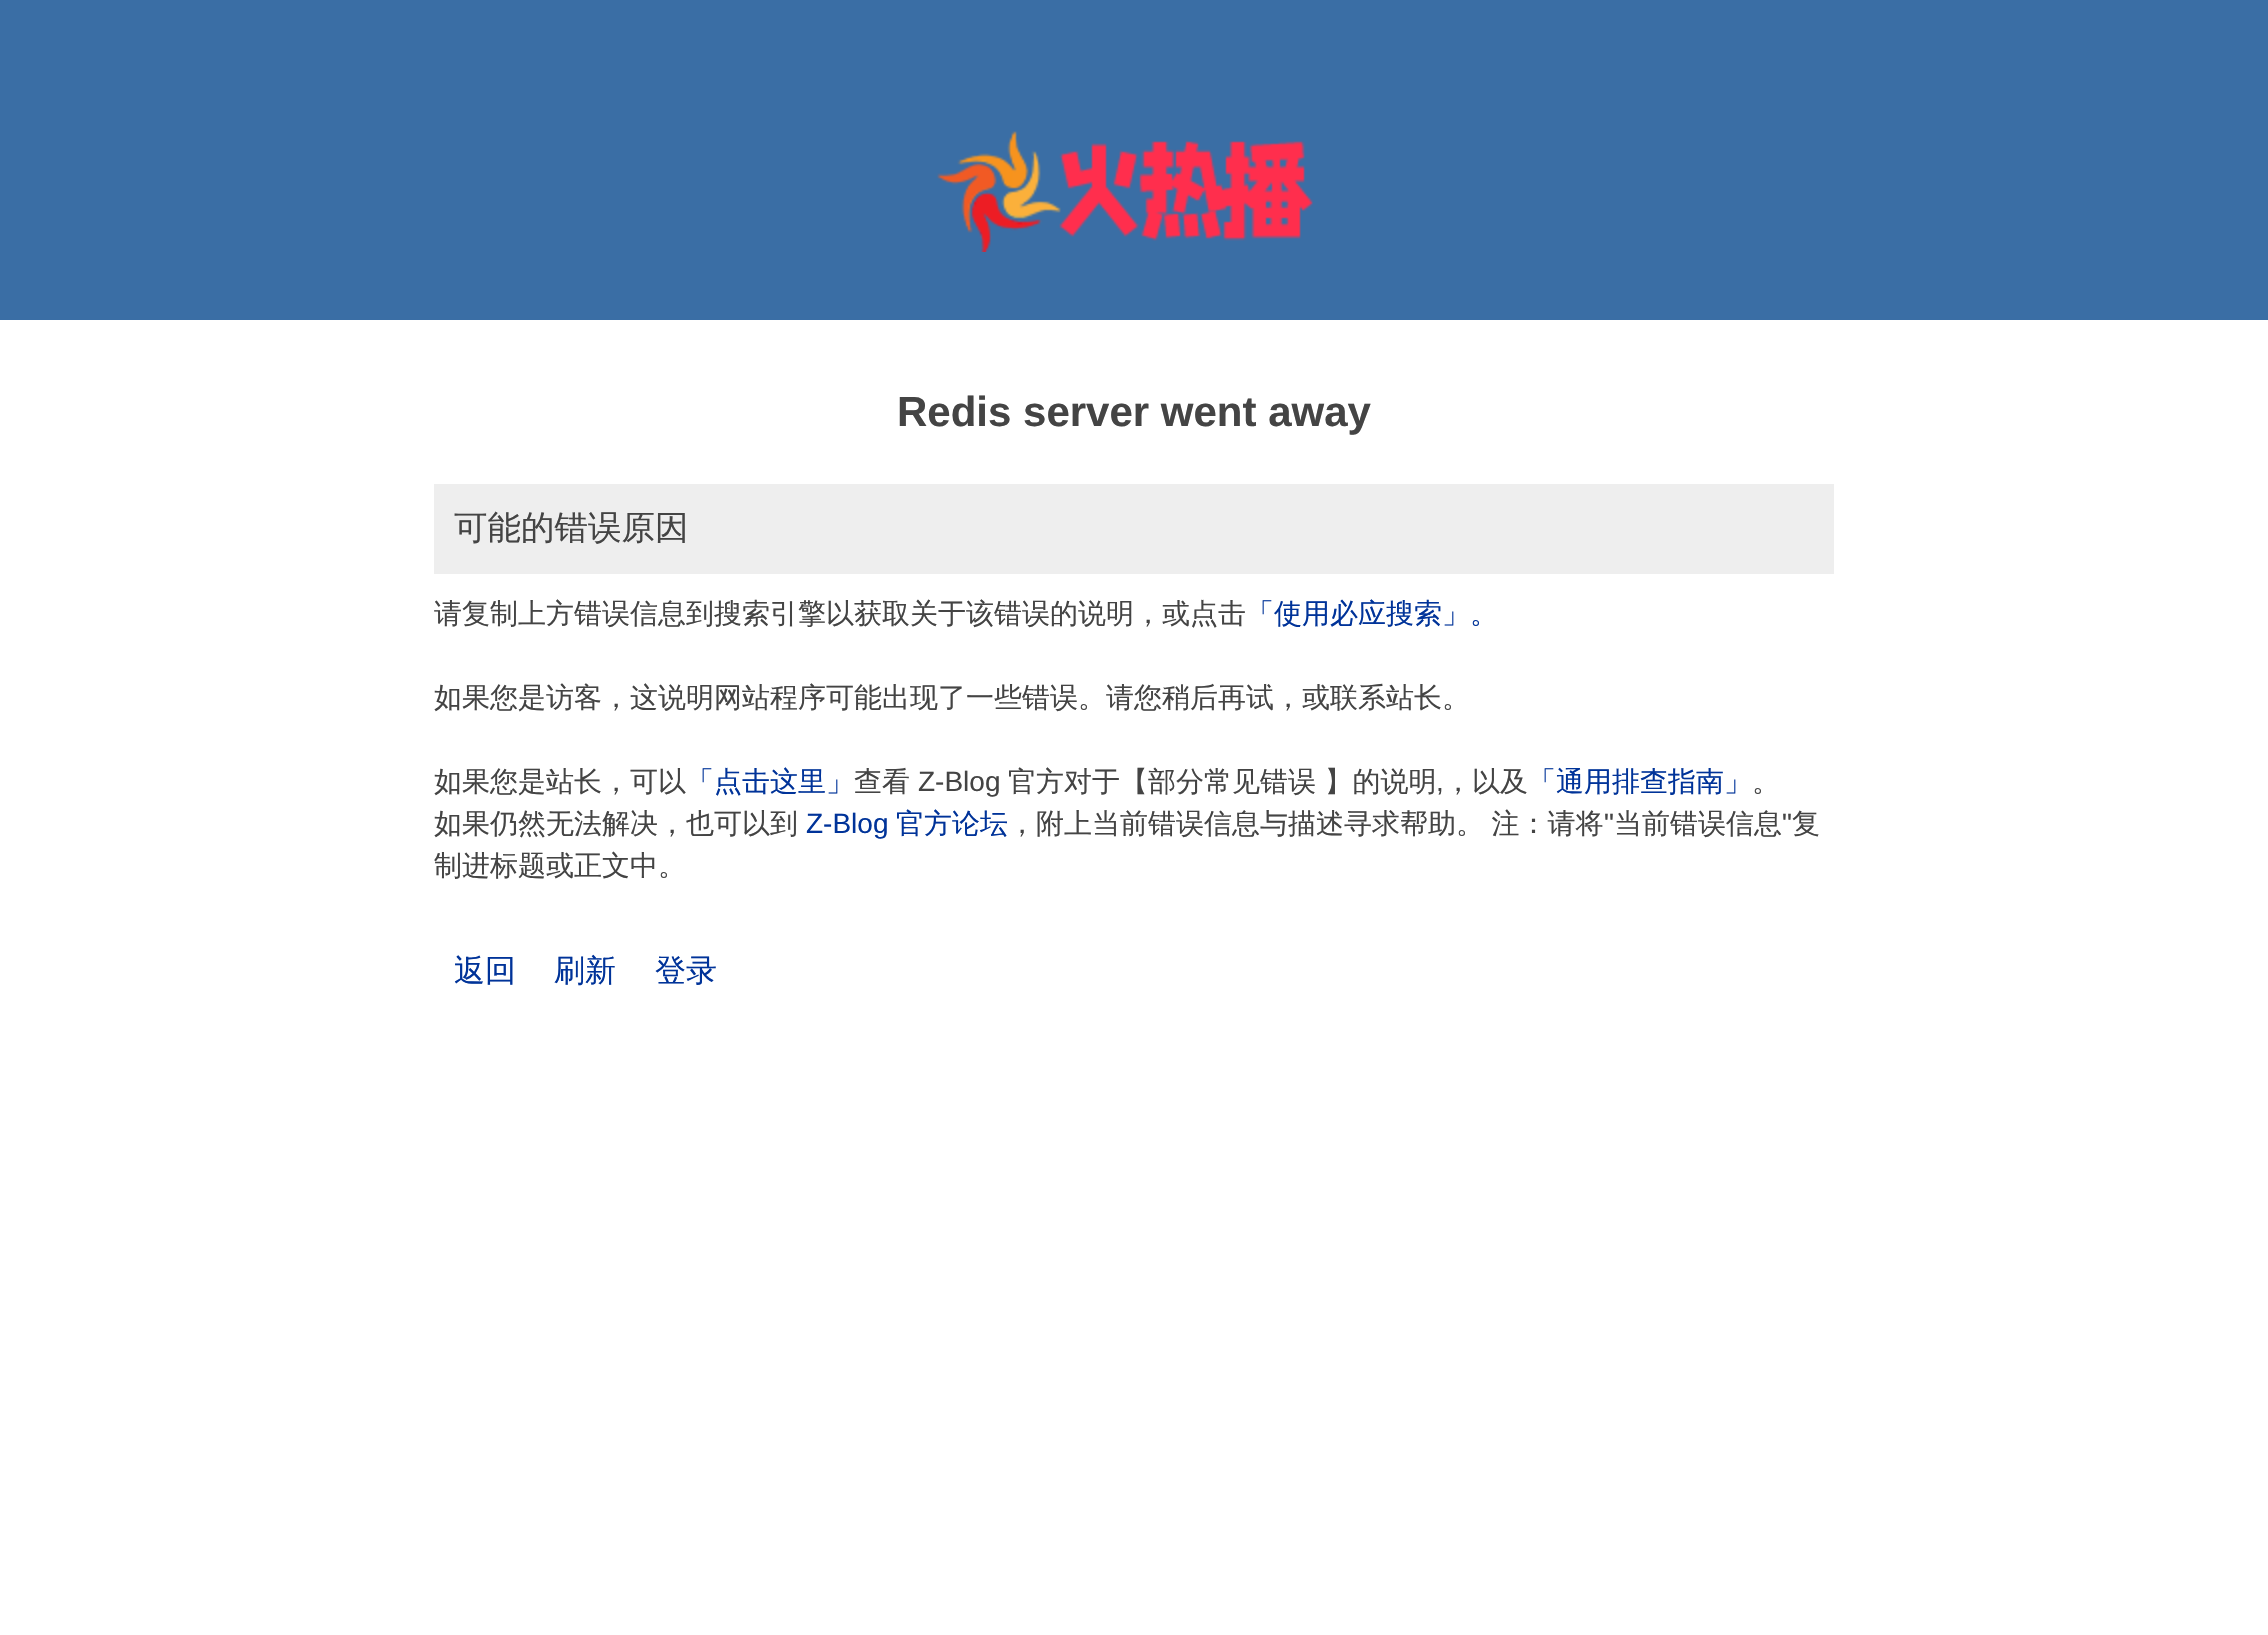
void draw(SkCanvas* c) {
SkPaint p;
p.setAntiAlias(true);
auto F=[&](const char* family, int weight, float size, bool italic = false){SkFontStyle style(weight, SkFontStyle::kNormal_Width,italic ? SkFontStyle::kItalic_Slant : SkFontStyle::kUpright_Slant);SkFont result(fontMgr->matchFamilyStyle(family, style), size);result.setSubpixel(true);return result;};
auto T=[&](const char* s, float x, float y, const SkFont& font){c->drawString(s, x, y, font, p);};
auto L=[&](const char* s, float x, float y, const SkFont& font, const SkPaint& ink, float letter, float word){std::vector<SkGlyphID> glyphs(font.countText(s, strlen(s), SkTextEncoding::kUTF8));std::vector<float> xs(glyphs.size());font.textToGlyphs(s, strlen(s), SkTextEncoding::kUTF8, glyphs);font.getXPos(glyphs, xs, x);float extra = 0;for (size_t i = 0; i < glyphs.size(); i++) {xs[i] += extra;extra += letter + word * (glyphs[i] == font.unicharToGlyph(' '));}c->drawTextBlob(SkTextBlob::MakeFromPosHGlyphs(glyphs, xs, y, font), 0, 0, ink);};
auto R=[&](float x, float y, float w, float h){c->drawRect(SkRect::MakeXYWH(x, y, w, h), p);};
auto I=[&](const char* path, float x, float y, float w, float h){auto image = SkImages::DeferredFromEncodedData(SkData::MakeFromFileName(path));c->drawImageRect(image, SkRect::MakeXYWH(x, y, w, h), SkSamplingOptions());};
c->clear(0xffffffff);
p.setColor(0xff3a6ea5);
R(0,0,2268,320);
I("1.png",937,131,376,121);
auto f1 = F("Liberation Sans",700,42);
p.setColor(0xff444444);
T("Redis server went away",897,426,f1);
p.setColor(0xffeeeeee);
R(434,484,1400,90);
auto f2 = F("WenQuanYi Zen Hei",500,33.5);
p.setColor(0xff444444);
T("可能的错误原因",454,539,f2);
auto f3 = F("WenQuanYi Zen Hei",500,28);
T("请复制上方错误信息到搜索引擎以获取关于该错误的说明，或点击",434,623,f3);
p.setColor(0xff003399);
T("「使用必应搜索」。",1246,623,f3);
p.setColor(0xff444444);
T("如果您是访客，这说明网站程序可能出现了一些错误。请您稍后再试，或联系站长。",434,707,f3);
T("如果您是站长，可以",434,791,f3);
p.setColor(0xff003399);
T("「点击这里」",686,791,f3);
p.setColor(0xff444444);
T("查看",854,791,f3);
auto f4 = F("Liberation Sans",400,28);
T("Z-Blog",918,791,f4);
T("官方对于【部分常见错误 】的说明",1008,791,f3);
T(",",1436,791,f4);
T("，以及",1444,791,f3);
p.setColor(0xff003399);
T("「通用排查指南」",1528,791,f3);
p.setColor(0xff444444);
T("。",1752,791,f3);
T("如果仍然无法解决，也可以到",434,833,f3);
p.setColor(0xff003399);
T("Z-Blog",806,833,f4);
T("官方论坛",896,833,f3);
p.setColor(0xff444444);
L("，附上当前错误信息与描述寻求帮助。 注：请将",1008,833,f3,p,0,-1);
T("\"",1604,833,f4);
T("当前错误信息",1614,833,f3);
T("\"",1782,833,f4);
T("复",1792,833,f3);
T("制进标题或正文中。",434,875,f3);
auto f5 = F("WenQuanYi Zen Hei",500,31);
p.setColor(0xff003399);
T("返回",454,981,f5);
T("刷新",554,981,f5);
T("登录",655,981,f5);
}
